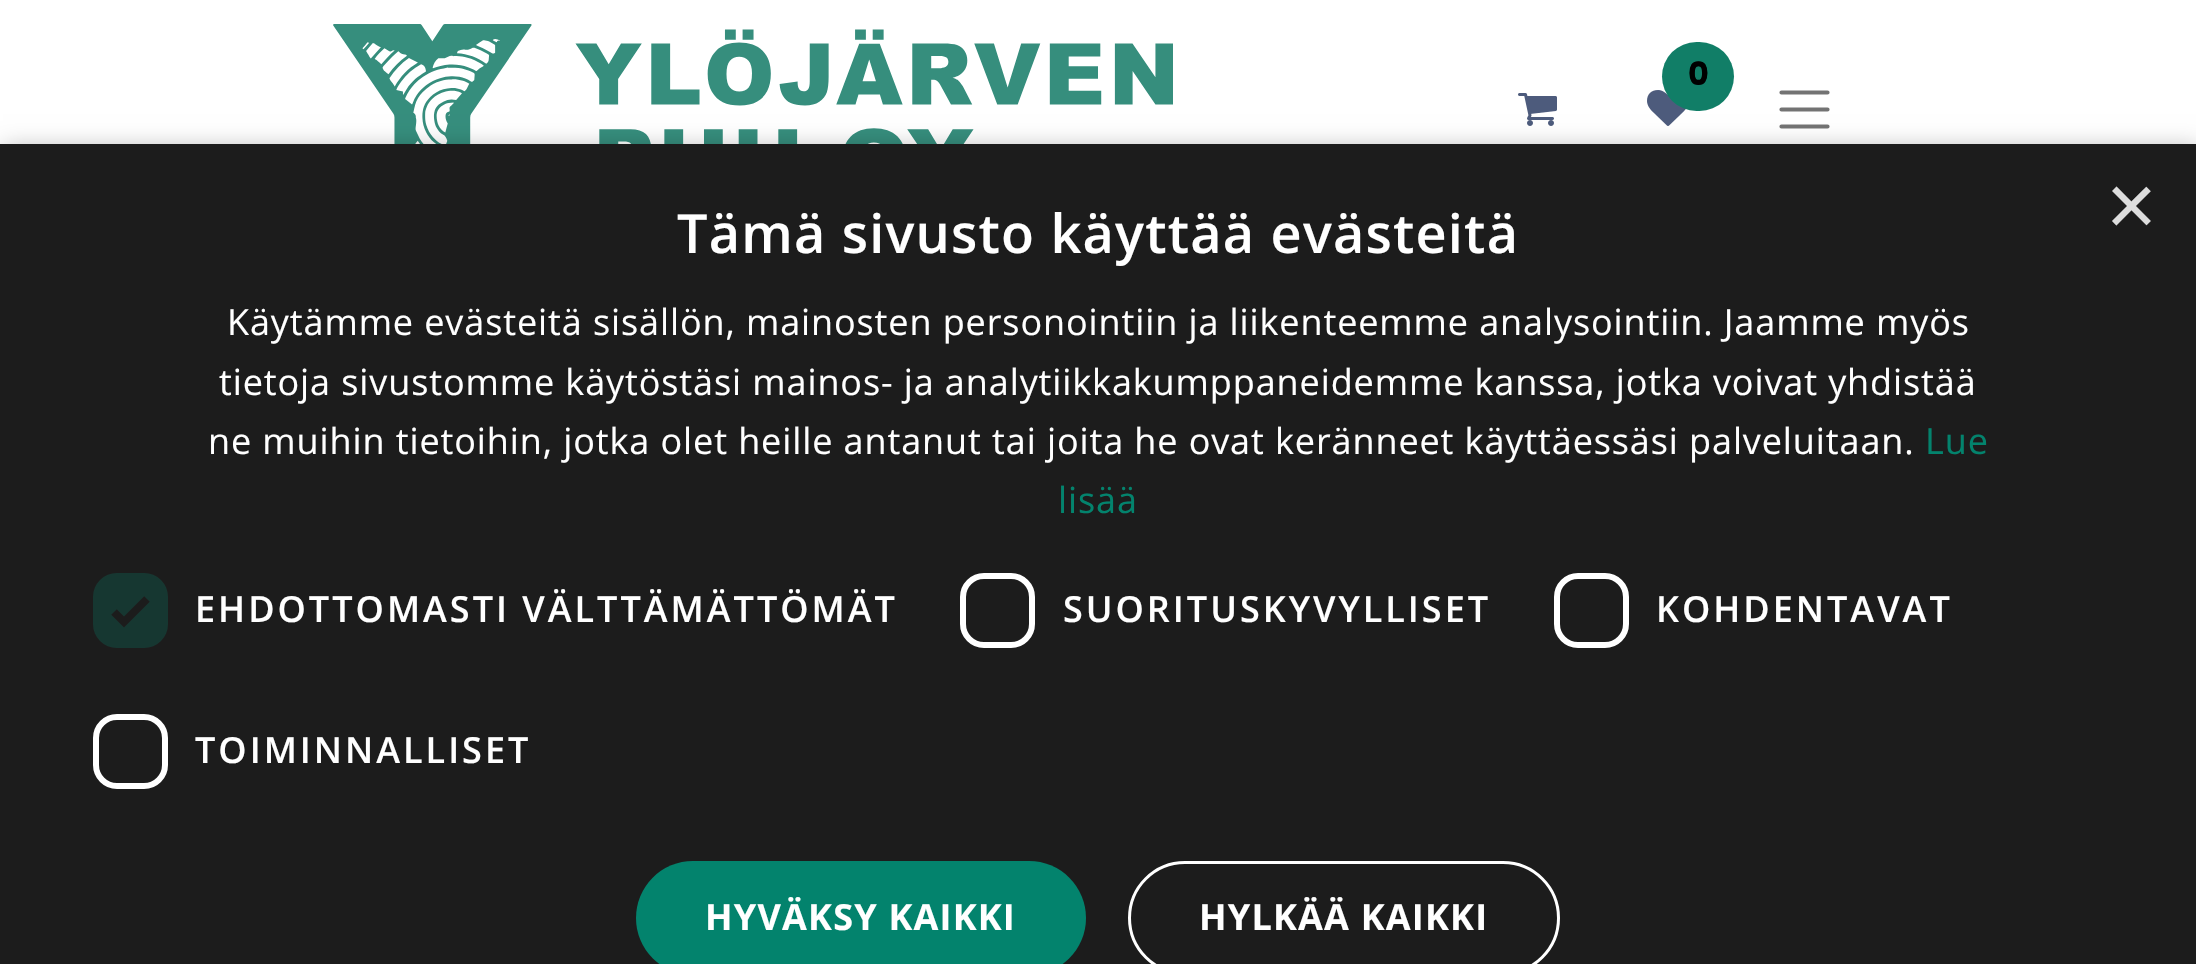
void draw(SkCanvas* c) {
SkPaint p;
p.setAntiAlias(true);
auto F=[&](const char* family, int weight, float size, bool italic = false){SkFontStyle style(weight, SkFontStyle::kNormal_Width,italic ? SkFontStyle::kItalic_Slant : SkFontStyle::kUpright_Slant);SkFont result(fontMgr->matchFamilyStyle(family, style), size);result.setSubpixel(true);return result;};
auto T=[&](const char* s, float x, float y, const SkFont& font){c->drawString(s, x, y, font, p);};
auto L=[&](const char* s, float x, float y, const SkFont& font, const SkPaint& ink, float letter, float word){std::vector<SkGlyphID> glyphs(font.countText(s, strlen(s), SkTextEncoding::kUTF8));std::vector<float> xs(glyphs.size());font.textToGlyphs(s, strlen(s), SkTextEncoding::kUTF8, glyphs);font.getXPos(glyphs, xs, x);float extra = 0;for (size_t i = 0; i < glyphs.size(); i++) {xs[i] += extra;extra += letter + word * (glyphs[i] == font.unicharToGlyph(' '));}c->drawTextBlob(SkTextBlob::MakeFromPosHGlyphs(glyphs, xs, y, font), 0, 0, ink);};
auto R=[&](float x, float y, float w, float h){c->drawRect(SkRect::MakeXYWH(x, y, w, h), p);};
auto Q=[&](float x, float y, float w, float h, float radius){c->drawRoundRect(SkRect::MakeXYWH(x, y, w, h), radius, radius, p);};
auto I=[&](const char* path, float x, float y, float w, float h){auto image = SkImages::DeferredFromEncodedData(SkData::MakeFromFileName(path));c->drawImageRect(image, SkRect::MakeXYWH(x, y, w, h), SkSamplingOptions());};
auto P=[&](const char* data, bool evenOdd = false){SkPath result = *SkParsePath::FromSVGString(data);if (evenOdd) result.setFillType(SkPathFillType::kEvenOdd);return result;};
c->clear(0xffffffff);
I("1.png",333,24,840,120);
I("2.png",1647,90,39,36);
p.setColor(0xff117e67);
Q(1662,42,72,69,34.5);
auto f1 = F("Poppins",700,32);
p.setColor(0xff000000);
T("0",1688,85,f1);
I("3.png",1518,93,39,33);
p.setStroke(true);
p.setStrokeWidth(4.2);
p.setStrokeCap(SkPaint::kRound_Cap);
p.setColor(0xff737373);
c->drawPath(P("M1781.5 92.5h46m-46 17h46m-46 17h46"),p);
p.setStroke(false);
p.setColor(0x59000000);
p.setMaskFilter(SkMaskFilter::MakeBlur(kNormal_SkBlurStyle, 12));
c->drawRect(SkRect::MakeXYWH(3,150,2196,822),p);
p.setMaskFilter(nullptr);
p.setColor(0xff1c1c1c);
R(0,144,2196,820);
auto f2 = F("Liberation Sans",400,87);
p.setColor(0xffdddddd);
T("×",2106,235,f2);
auto f3 = F("Open Sans",600,54);
p.setColor(0xffffffff);
L("Tämä sivusto käyttää evästeitä",677,253,f3,p,1.2,0);
auto f4 = F("Open Sans",400,36);
L("Käytämme evästeitä sisällön, mainosten personointiin ja liikenteemme analysointiin. Jaamme myös",227,335,f4,p,.9,0);
L("tietoja sivustomme käytöstäsi mainos- ja analytiikkakumppaneidemme kanssa, jotka voivat yhdistää",219,395,f4,p,.9,0);
L("ne muihin tietoihin, jotka olet heille antanut tai joita he ovat keränneet käyttäessäsi palveluitaan.",208,454,f4,p,.9,0);
p.setColor(0xff03836d);
L("Lue",1925,454,f4,p,.9,0);
L("lisää",1058,513,f4,p,.9,0);
p.setColor(0xff163731);
Q(93,573,75,75,24);
p.setStroke(true);
p.setStrokeWidth(7.9);
p.setStrokeCap(SkPaint::kButt_Cap);
p.setColor(0xff1c1c1c);
c->drawPath(P("M114 612l10 10l23-23"),p);
auto f5 = F("Open Sans",600,36);
p.setStroke(false);
p.setColor(0xffffffff);
L("EHDOTTOMASTI VÄLTTÄMÄTTÖMÄT",195,622,f5,p,3,0);
p.setStroke(true);
p.setStrokeWidth(6);
c->drawRoundRect(SkRect::MakeXYWH(963,576,69,69),21,21,p);
p.setStroke(false);
L("SUORITUSKYVYLLISET",1063,622,f5,p,3,0);
p.setStroke(true);
c->drawRoundRect(SkRect::MakeXYWH(1557,576,69,69),21,21,p);
p.setStroke(false);
L("KOHDENTAVAT",1656,622,f5,p,3,0);
p.setStroke(true);
c->drawRoundRect(SkRect::MakeXYWH(96,717,69,69),21,21,p);
p.setStroke(false);
L("TOIMINNALLISET",195,763,f5,p,3,0);
p.setColor(0xff03836d);
Q(636,861,450,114,57);
auto f6 = F("Open Sans",700,36);
p.setColor(0xffffffff);
L("HYVÄKSY KAIKKI",705,930,f6,p,1.2,0);
p.setStroke(true);
p.setStrokeWidth(3);
c->drawRoundRect(SkRect::MakeXYWH(1129.5,862.5,429,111),55.5,55.5,p);
p.setStroke(false);
L("HYLKÄÄ KAIKKI",1199,930,f6,p,1.2,0);
}
